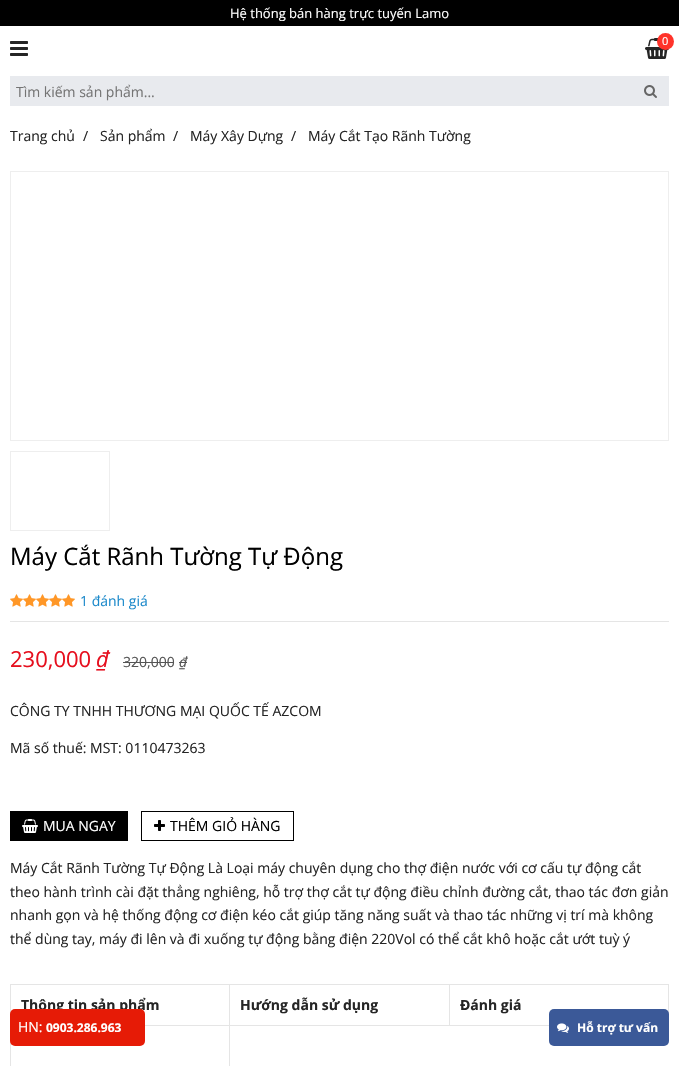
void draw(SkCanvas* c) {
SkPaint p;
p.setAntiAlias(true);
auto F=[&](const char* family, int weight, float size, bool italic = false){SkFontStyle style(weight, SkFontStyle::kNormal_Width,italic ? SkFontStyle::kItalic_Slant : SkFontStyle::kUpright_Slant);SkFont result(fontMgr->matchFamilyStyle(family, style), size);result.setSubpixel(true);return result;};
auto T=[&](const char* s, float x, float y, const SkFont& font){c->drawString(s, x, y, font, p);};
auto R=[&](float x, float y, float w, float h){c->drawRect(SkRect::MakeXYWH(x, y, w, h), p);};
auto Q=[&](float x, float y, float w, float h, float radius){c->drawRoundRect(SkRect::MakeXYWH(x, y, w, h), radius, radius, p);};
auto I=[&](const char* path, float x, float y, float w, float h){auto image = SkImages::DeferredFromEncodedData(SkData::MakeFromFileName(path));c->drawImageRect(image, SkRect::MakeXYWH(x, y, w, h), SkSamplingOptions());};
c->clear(0xffffffff);
p.setColor(0xff000000);
R(0,0,679,26);
auto f1 = F("Open Sans",400,13);
p.setColor(0xffffffff);
T("Hệ thống bán hàng trực tuyến Lamo",230,18,f1);
I("1.png",10,41,18,15);
I("2.png",645,38,24,21);
p.setColor(0xffff332a);
c->drawCircle(665.5,41.5,8.5,p);
auto f2 = F("Open Sans",400,11);
p.setColor(0xffffffff);
T("0",662,45,f2);
p.setColor(0xffe8eaee);
R(10,76,659,30);
auto f3 = F("Open Sans",400,14);
p.setColor(0xff757575);
T("Tìm kiếm sản phẩm...",16,97,f3);
I("3.png",644,85,13,13);
p.setColor(0xff252525);
T("Trang chủ",10,141,f3);
T("/",83,141,f3);
T("Sản phẩm",100,141,f3);
T("/",173,141,f3);
T("Máy Xây Dựng",190,141,f3);
T("/",291,141,f3);
T("Máy Cắt Tạo Rãnh Tường",308,141,f3);
p.setStroke(true);
p.setStrokeWidth(1);
p.setColor(0xffeeeeee);
c->drawRect(SkRect::MakeXYWH(10.5,171.5,658,269),p);
c->drawRect(SkRect::MakeXYWH(10.5,451.5,99,79),p);
auto f4 = F("Open Sans",400,24);
p.setStroke(false);
p.setColor(0xff000000);
T("Máy Cắt Rãnh Tường Tự Động",10,565,f4);
I("4.png",10,594,13,13);
I("4.png",23,594,13,13);
I("4.png",36,594,13,13);
I("4.png",49,594,13,13);
I("4.png",62,594,13,13);
p.setColor(0xff1d8acb);
T("1 đánh giá",80,606,f3);
p.setColor(0xffe5e5e5);
R(10,621,659,1);
auto f5 = F("Open Sans",400,22);
p.setColor(0xffe60f1e);
T("230,000",10,667,f5);
auto f6 = F("Open Sans",400,22,true);
T("₫",96,667,f6);
p.setColor(0xff555555);
T("320,000",123,667,f3);
R(123,662,51,1);
auto f7 = F("Open Sans",400,14,true);
T("₫",179,667,f7);
R(179,662,8,1);
p.setColor(0xff252525);
T("CÔNG TY TNHH THƯƠNG MẠI QUỐC TẾ AZCOM",10,716,f3);
T("Mã số thuế: MST: 0110473263",10,753,f3);
p.setColor(0xff000000);
R(10,811,118,30);
I("5.png",22,819,16,14);
p.setColor(0xffffffff);
T("MUA NGAY",43,831,f3);
p.setStroke(true);
p.setColor(0xff000000);
c->drawRect(SkRect::MakeXYWH(141.5,811.5,152,29),p);
I("6.png",154,820,11,11);
p.setStroke(false);
T("THÊM GIỎ HÀNG",170,831,f3);
p.setColor(0xff252525);
T("Máy Cắt Rãnh Tường Tự Động Là Loại máy chuyên dụng cho thợ điện nước với cơ cấu tự động cắt",10,873,f3);
T("theo hành trình cài đặt thẳng nghiêng, hỗ trợ thợ cắt tự động điều chỉnh đường cắt, thao tác đơn giản",10,897,f3);
T("nhanh gọn và hệ thống động cơ điện kéo cắt giúp tăng năng suất và thao tác những vị trí mà không",10,920,f3);
T("thể dùng tay, máy đi lên và đi xuống tự động bằng điện 220Vol có thể cắt khô hoặc cắt ướt tuỳ ý",10,944,f3);
p.setColor(0xffe5e5e5);
R(10,984,659,1);
R(10,984,1,82);
R(229,985,1,81);
R(145,1025,85,1);
auto f8 = F("Open Sans",700,14);
p.setColor(0xff252525);
T("Thông tin sản phẩm",21,1010,f8);
p.setColor(0xffe5e5e5);
R(449,985,1,41);
R(230,1025,319,1);
p.setColor(0xff252525);
T("Hướng dẫn sử dụng",240,1010,f8);
p.setColor(0xffe5e5e5);
R(668,985,1,29);
p.setColor(0xff252525);
T("Đánh giá",460,1010,f8);
p.setColor(0xffe61b06);
Q(10,1009,135,37,5);
p.setColor(0xffffffff);
T("HN:",18,1032,f3);
auto f9 = F("Open Sans",700,12);
T("0903.286.963",46,1032,f9);
p.setColor(0xff3b5998);
Q(549,1009,120,37,5);
I("7.png",557,1023,12,10);
p.setColor(0xffffffff);
T("Hỗ trợ tư vấn",577,1032,f9);
}
